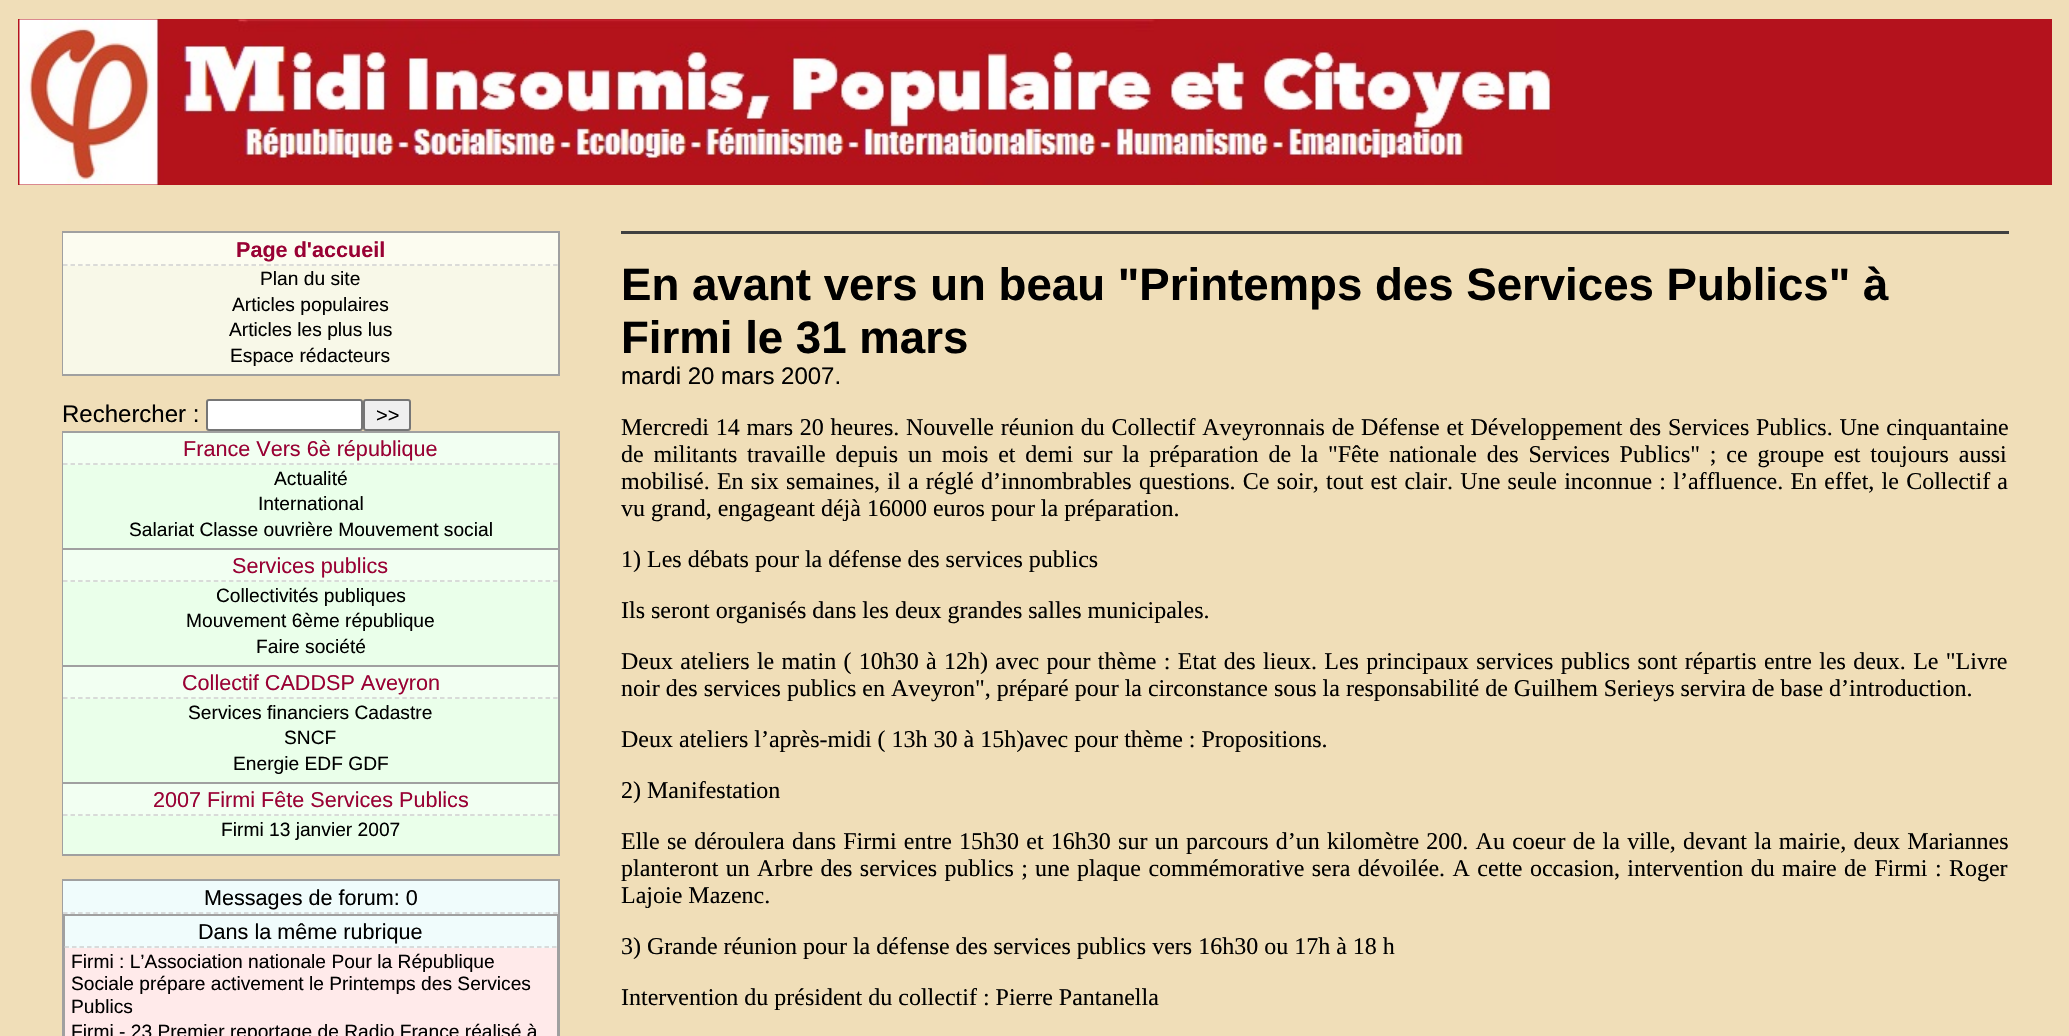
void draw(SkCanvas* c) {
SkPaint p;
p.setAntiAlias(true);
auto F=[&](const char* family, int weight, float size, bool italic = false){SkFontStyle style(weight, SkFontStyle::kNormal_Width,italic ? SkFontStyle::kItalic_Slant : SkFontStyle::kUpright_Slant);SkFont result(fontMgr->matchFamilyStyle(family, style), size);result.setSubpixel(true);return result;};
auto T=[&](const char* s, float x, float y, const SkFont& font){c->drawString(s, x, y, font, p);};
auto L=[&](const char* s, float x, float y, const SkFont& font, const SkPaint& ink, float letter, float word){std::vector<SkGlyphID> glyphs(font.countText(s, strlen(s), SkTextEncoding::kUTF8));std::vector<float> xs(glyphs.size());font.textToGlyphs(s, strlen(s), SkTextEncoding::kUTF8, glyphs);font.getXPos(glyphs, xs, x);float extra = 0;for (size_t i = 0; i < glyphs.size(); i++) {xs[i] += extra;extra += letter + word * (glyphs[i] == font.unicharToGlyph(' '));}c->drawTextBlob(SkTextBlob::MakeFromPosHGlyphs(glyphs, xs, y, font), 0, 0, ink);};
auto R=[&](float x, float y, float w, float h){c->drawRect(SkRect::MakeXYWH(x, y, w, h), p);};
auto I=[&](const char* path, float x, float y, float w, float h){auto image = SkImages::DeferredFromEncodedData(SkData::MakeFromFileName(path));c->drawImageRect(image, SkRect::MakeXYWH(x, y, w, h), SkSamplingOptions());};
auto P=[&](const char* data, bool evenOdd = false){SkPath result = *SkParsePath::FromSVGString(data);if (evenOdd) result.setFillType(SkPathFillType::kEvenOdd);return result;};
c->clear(0xfff0deb8);
p.setColor(0xffb4121d);
R(18,19,2034,166);
I("1.png",19,19,1537,166);
p.setColor(0xffa0a0a0);
R(558,231,2,144);
R(62,374,498,2);
R(62,231,2,144);
p.setColor(0xfff8f8e8);
R(63,266,495,108);
p.setColor(0xfffcfcf0);
R(63,233,495,33);
p.setColor(0xffa0a0a0);
R(63,231,495,2);
p.setStroke(true);
p.setStrokeWidth(1.5);
p.setColor(0xffd0d0d0);
p.setPathEffect(SkDashPathEffect::Make({{4.5f,3.04f}}, 0));
c->drawPath(P("M63 265h495"),p);
p.setPathEffect(nullptr);
auto f1 = F("Liberation Sans",700,21.6);
p.setStroke(false);
p.setColor(0xff990134);
T("Page d'accueil",236,257,f1);
auto f2 = F("Liberation Sans",400,19.2);
p.setColor(0xff000000);
T("Plan du site",260,285,f2);
T("Articles populaires",232,311,f2);
T("Articles les plus lus",229,336,f2);
T("Espace rédacteurs",230,362,f2);
auto f3 = F("Liberation Sans",400,24);
T("Rechercher :",62,422,f3);
p.setColor(0xffffffff);
c->drawRoundRect(SkRect::MakeXYWH(207,400,155,30),2,2,p);
p.setStroke(true);
p.setStrokeWidth(2);
p.setColor(0xff767676);
c->drawRoundRect(SkRect::MakeXYWH(207,400,155,30),2,2,p);
p.setStroke(false);
p.setColor(0xffefefef);
c->drawRoundRect(SkRect::MakeXYWH(364,400,46,30),2,2,p);
p.setStroke(true);
p.setColor(0xff767676);
c->drawRoundRect(SkRect::MakeXYWH(364,400,46,30),2,2,p);
auto f4 = F("Liberation Sans",400,20);
p.setStroke(false);
p.setColor(0xff000000);
T(">>",376,422,f4);
p.setColor(0xffa0a0a0);
R(558,431,2,424);
R(62,854,498,2);
R(62,431,2,424);
p.setColor(0xffeaffea);
R(63,465,495,389);
p.setColor(0xfff2fff2);
R(63,433,495,32);
p.setColor(0xffa0a0a0);
R(63,431,495,2);
p.setStroke(true);
p.setStrokeWidth(1.5);
p.setColor(0xffd0d0d0);
p.setPathEffect(SkDashPathEffect::Make({{4.5f,3.04f}}, 0));
c->drawPath(P("M63 464h495"),p);
p.setPathEffect(nullptr);
auto f5 = F("Liberation Sans",400,21.6);
p.setStroke(false);
p.setColor(0xff990134);
T("France Vers 6è république",183,456,f5);
p.setColor(0xff000000);
T("Actualité",274,485,f2);
T("International",258,510,f2);
T("Salariat Classe ouvrière Mouvement social",129,536,f2);
p.setColor(0xfff2fff2);
R(63,550,495,32);
p.setColor(0xffa0a0a0);
R(63,548,495,2);
p.setStroke(true);
p.setColor(0xffd0d0d0);
p.setPathEffect(SkDashPathEffect::Make({{4.5f,3.04f}}, 0));
c->drawPath(P("M63 581h495"),p);
p.setPathEffect(nullptr);
p.setStroke(false);
p.setColor(0xff990134);
T("Services publics",232,573,f5);
p.setColor(0xff000000);
T("Collectivités publiques",216,602,f2);
T("Mouvement 6ème république",186,627,f2);
T("Faire société",256,653,f2);
p.setColor(0xfff2fff2);
R(63,667,495,32);
p.setColor(0xffa0a0a0);
R(63,665,495,2);
p.setStroke(true);
p.setColor(0xffd0d0d0);
p.setPathEffect(SkDashPathEffect::Make({{4.5f,3.04f}}, 0));
c->drawPath(P("M63 698h495"),p);
p.setPathEffect(nullptr);
p.setStroke(false);
p.setColor(0xff990134);
T("Collectif CADDSP Aveyron",182,690,f5);
p.setColor(0xff000000);
T("Services financiers Cadastre",188,719,f2);
T("SNCF",284,744,f2);
T("Energie EDF GDF",233,770,f2);
p.setColor(0xfff2fff2);
R(63,784,495,32);
p.setColor(0xffa0a0a0);
R(63,782,495,2);
p.setStroke(true);
p.setColor(0xffd0d0d0);
p.setPathEffect(SkDashPathEffect::Make({{4.5f,3.04f}}, 0));
c->drawPath(P("M63 815h495"),p);
p.setPathEffect(nullptr);
p.setStroke(false);
p.setColor(0xff990134);
T("2007 Firmi Fête Services Publics",153,807,f5);
p.setColor(0xff000000);
T("Firmi 13 janvier 2007",221,836,f2);
p.setColor(0xffa0a0a0);
R(558,879,2,157);
R(62,879,1,157);
p.setColor(0xfff0fcfc);
R(63,881,495,33);
p.setColor(0xffa0a0a0);
R(63,879,495,2);
p.setStroke(true);
p.setColor(0xffd0d0d0);
p.setPathEffect(SkDashPathEffect::Make({{4.5f,3.04f}}, 0));
c->drawPath(P("M63 913h495"),p);
p.setPathEffect(nullptr);
p.setStroke(false);
p.setColor(0xff000000);
T("Messages de forum: 0",204,905,f5);
p.setColor(0xffa0a0a0);
R(557,914,1,122);
R(63,914,2,122);
p.setColor(0xffffeaea);
R(65,948,492,88);
p.setColor(0xfff0fcfc);
R(65,916,492,32);
p.setColor(0xffa0a0a0);
R(65,914,492,2);
p.setStroke(true);
p.setColor(0xffd0d0d0);
p.setPathEffect(SkDashPathEffect::Make({{4.5f,3}}, 0));
c->drawPath(P("M64.5 947h492"),p);
p.setPathEffect(nullptr);
p.setStroke(false);
p.setColor(0xff000000);
T("Dans la même rubrique",198,939,f5);
T("Firmi : L’Association nationale Pour la République",71,968,f2);
T("Sociale prépare activement le Printemps des Services",71,990,f2);
T("Publics",71,1013,f2);
T("Firmi - 23 Premier reportage de Radio France réalisé à",71,1038,f2);
p.setColor(0xff404040);
R(621,231,1388,3);
auto f6 = F("Liberation Sans",700,45.6);
p.setColor(0xff000000);
T("En avant vers un beau \"Printemps des Services Publics\" à",621,300,f6);
T("Firmi le 31 mars",621,353,f6);
T("mardi 20 mars 2007.",621,384,f3);
auto f7 = F("Liberation Serif",400,24);
L("Mercredi 14 mars 20 heures. Nouvelle réunion du Collectif Aveyronnais de Défense et Développement des Services Publics. Une cinquantaine",621,435,f7,p,0,.75);
L("de militants",621,462,f7,p,0,3.8);
L("travaille depuis un mois et demi sur la préparation de la \"Fête nationale des Services Publics\" ; ce groupe est toujours aussi",747,462,f7,p,0,3.8);
L("mobilisé. En six semaines, il a réglé d’innombrables questions. Ce soir, tout est clair. Une seule inconnue : l’affluence. En effet, le Collectif a",621,489,f7,p,0,1.25);
T("vu grand, engageant déjà 16000 euros pour la préparation.",621,516,f7);
T("1) Les débats pour la défense des services publics",621,567,f7);
T("Ils seront organisés dans les deux grandes salles municipales.",621,618,f7);
L("Deux ateliers le matin ( 10h30 à 12h) avec pour thème : Etat des lieux. Les principaux services publics sont répartis entre les deux. Le \"Livre",621,669,f7,p,0,1.3);
T("noir des services publics en Aveyron\", préparé pour la circonstance sous la responsabilité de Guilhem Serieys servira de base d’introduction.",621,696,f7);
T("Deux ateliers l’après-midi ( 13h 30 à 15h)avec pour thème : Propositions.",621,747,f7);
T("2) Manifestation",621,798,f7);
L("Elle se déroulera dans Firmi entre 15h30 et 16h30 sur un parcours d’un kilomètre 200. Au coeur de la ville, devant la mairie, deux Mariannes",621,849,f7,p,0,1.25);
L("planteront un Arbre des services publics ;",621,876,f7,p,0,1.4);
L("une plaque commémorative sera dévoilée. A cette occasion, intervention du maire de Firmi : Roger",1035,876,f7,p,0,1.4);
T("Lajoie Mazenc.",621,903,f7);
T("3) Grande réunion pour la défense des services publics vers 16h30 ou 17h à 18 h",621,954,f7);
T("Intervention du président du collectif : Pierre Pantanella",621,1005,f7);
}
